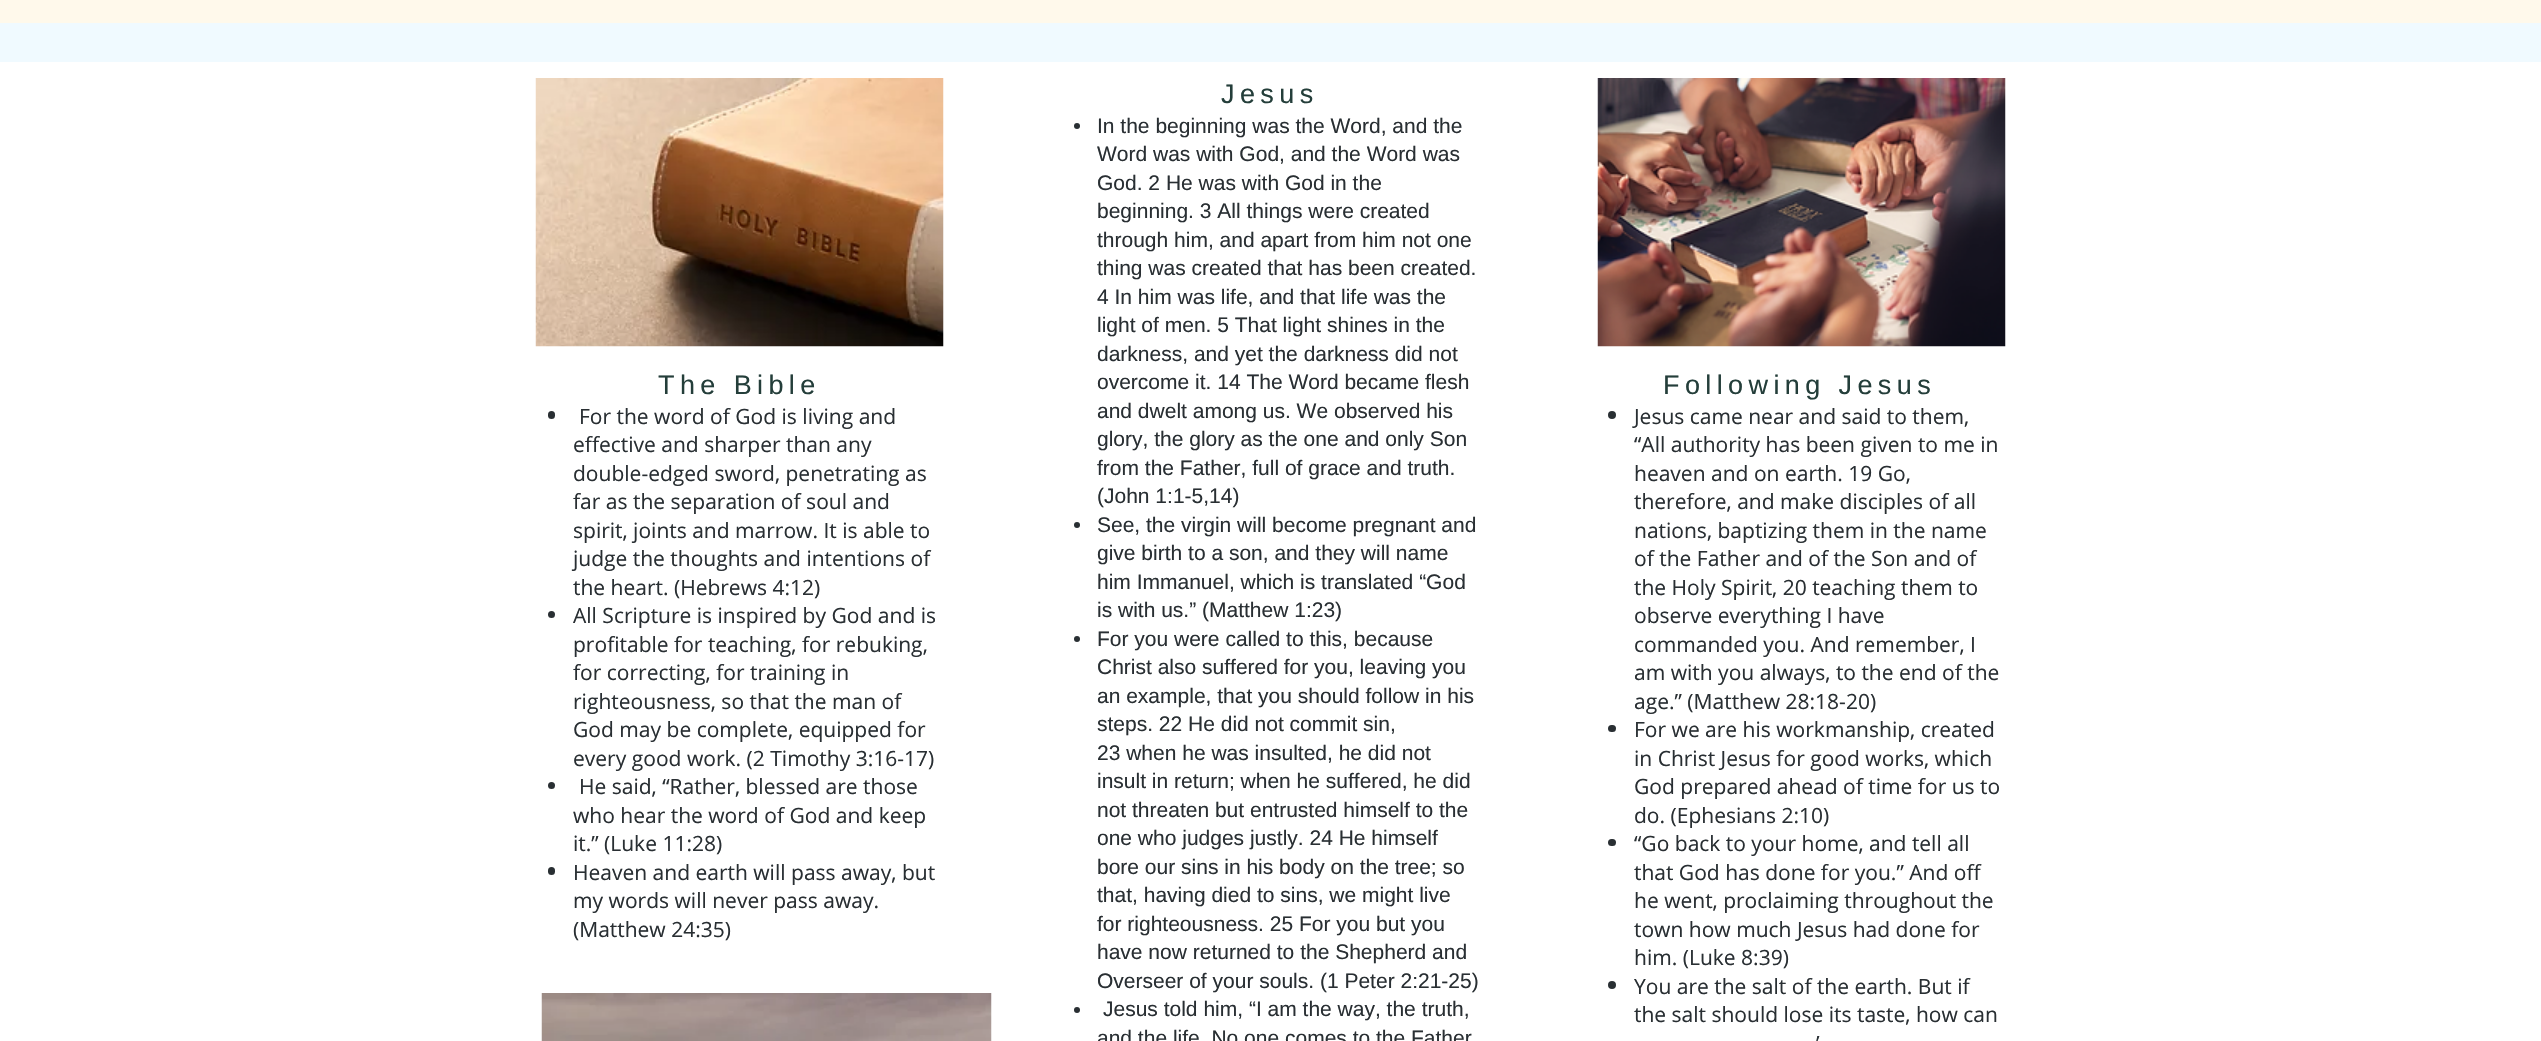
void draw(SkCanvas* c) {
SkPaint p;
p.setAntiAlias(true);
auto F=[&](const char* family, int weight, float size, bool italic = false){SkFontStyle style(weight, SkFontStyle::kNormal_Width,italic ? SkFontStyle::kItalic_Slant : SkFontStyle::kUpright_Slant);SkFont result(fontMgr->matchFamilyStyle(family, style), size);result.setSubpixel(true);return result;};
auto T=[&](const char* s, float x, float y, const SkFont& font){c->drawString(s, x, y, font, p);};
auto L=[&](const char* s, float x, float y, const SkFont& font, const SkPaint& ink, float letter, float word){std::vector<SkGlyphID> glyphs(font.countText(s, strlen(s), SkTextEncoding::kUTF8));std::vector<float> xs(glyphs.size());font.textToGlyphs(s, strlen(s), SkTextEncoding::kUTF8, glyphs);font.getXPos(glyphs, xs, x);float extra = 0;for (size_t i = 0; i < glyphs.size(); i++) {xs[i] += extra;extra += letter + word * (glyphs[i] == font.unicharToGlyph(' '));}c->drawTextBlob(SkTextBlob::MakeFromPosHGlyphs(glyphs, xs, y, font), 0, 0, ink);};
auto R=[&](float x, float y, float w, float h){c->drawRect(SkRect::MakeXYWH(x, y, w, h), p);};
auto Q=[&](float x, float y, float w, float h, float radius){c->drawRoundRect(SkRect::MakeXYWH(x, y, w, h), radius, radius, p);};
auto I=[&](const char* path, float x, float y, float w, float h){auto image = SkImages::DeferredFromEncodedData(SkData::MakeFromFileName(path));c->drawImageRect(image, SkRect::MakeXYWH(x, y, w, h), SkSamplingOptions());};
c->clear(0xfff0faff);
p.setColor(0xfffff9eb);
R(0,0,2541,23);
p.setColor(0xffffffff);
R(0,62,2541,979);
I("1.png",535,78,409,269);
auto f1 = F("Liberation Sans",400,27);
p.setColor(0xff243e3a);
L("Jesus",1221,103,f1,p,5.4,0);
p.setColor(0xff292f33);
c->drawCircle(1077,126,3,p);
auto f2 = F("Liberation Sans",400,21);
T("In the beginning was the Word, and the",1097,133,f2);
T("Word was with God, and the Word was",1097,161,f2);
T("God. 2 He was with God in the",1097,190,f2);
T("beginning. 3 All things were created",1097,218,f2);
T("through him, and apart from him not one",1097,247,f2);
T("thing was created that has been created.",1097,275,f2);
T("4 In him was life, and that life was the",1097,304,f2);
T("light of men. 5 That light shines in the",1097,332,f2);
T("darkness, and yet the darkness did not",1097,361,f2);
T("overcome it. 14 The Word became flesh",1097,389,f2);
T("and dwelt among us. We observed his",1097,418,f2);
T("glory, the glory as the one and only Son",1097,446,f2);
T("from the Father, full of grace and truth.",1097,475,f2);
T("(John 1:1-5,14)",1097,503,f2);
c->drawCircle(1077,525,3,p);
T("See, the virgin will become pregnant and",1097,532,f2);
T("give birth to a son, and they will name",1097,560,f2);
T("him Immanuel, which is translated “God",1097,589,f2);
T("is with us.” (Matthew 1:23)",1097,617,f2);
c->drawCircle(1077,639,3,p);
T("For you were called to this, because",1097,646,f2);
T("Christ also suffered for you, leaving you",1097,674,f2);
T("an example, that you should follow in his",1097,703,f2);
T("steps. 22 He did not commit sin,",1097,731,f2);
T("23 when he was insulted, he did not",1097,760,f2);
T("insult in return; when he suffered, he did",1097,788,f2);
T("not threaten but entrusted himself to the",1097,817,f2);
T("one who judges justly. 24 He himself",1097,845,f2);
T("bore our sins in his body on the tree; so",1097,874,f2);
T("that, having died to sins, we might live",1097,902,f2);
T("for righteousness. 25 For you but you",1097,931,f2);
T("have now returned to the Shepherd and",1097,959,f2);
T("Overseer of your souls. (1 Peter 2:21-25)",1097,988,f2);
c->drawCircle(1077,1010,3,p);
T("Jesus told him, “I am the way, the truth,",1103,1016,f2);
T("and the life. No one comes to the Father",1097,1045,f2);
I("2.png",1597,78,409,269);
p.setColor(0xff243e3a);
L("The Bible",658,394,f1,p,5.4,0);
p.setColor(0xff292f33);
Q(548,411,7,8,3.5);
auto f3 = F("Open Sans",400,21);
T("For the word of God is living and",579,424,f3);
T("effective and sharper than any",573,452,f3);
T("double-edged sword, penetrating as",573,481,f3);
T("far as the separation of soul and",573,509,f3);
T("spirit, joints and marrow. It is able to",573,538,f3);
T("judge the thoughts and intentions of",573,566,f3);
T("the heart. (Hebrews 4:12)",573,595,f3);
c->drawCircle(551.5,614.5,3.5,p);
T("All Scripture is inspired by God and is",573,623,f3);
T("profitable for teaching, for rebuking,",573,652,f3);
T("for correcting, for training in",573,680,f3);
T("righteousness, so that the man of",573,709,f3);
T("God may be complete, equipped for",573,737,f3);
T("every good work. (2 Timothy 3:16-17)",573,766,f3);
c->drawCircle(551.5,785.5,3.5,p);
T("He said, “Rather, blessed are those",579,794,f3);
T("who hear the word of God and keep",573,823,f3);
T("it.” (Luke 11:28)",573,851,f3);
Q(548,867,7,8,3.5);
T("Heaven and earth will pass away, but",573,880,f3);
T("my words will never pass away.",573,908,f3);
T("(Matthew 24:35)",573,937,f3);
p.setColor(0xff243e3a);
L("Following Jesus",1663,394,f1,p,5.4,0);
p.setColor(0xff292f33);
c->drawCircle(1612,415,4,p);
T("Jesus came near and said to them,",1634,424,f3);
T("“All authority has been given to me in",1634,452,f3);
T("heaven and on earth. 19 Go,",1634,481,f3);
T("therefore, and make disciples of all",1634,509,f3);
T("nations, baptizing them in the name",1634,538,f3);
T("of the Father and of the Son and of",1634,566,f3);
T("the Holy Spirit, 20 teaching them to",1634,595,f3);
T("observe everything I have",1634,623,f3);
T("commanded you. And remember, I",1634,652,f3);
T("am with you always, to the end of the",1634,680,f3);
T("age.” (Matthew 28:18-20)",1634,709,f3);
Q(1608,725,8,7,3.5);
T("For we are his workmanship, created",1634,737,f3);
T("in Christ Jesus for good works, which",1634,766,f3);
T("God prepared ahead of time for us to",1634,794,f3);
T("do. (Ephesians 2:10)",1634,823,f3);
Q(1608,839,8,7,3.5);
T("“Go back to your home, and tell all",1634,851,f3);
T("that God has done for you.” And off",1634,880,f3);
T("he went, proclaiming throughout the",1634,908,f3);
T("town how much Jesus had done for",1634,937,f3);
T("him. (Luke 8:39)",1634,965,f3);
c->drawCircle(1612,985,4,p);
T("You are the salt of the earth. But if",1634,994,f3);
T("the salt should lose its taste, how can",1634,1022,f3);
T("’",1816,1051,f3);
I("3.png",541,993,451,48);
}
